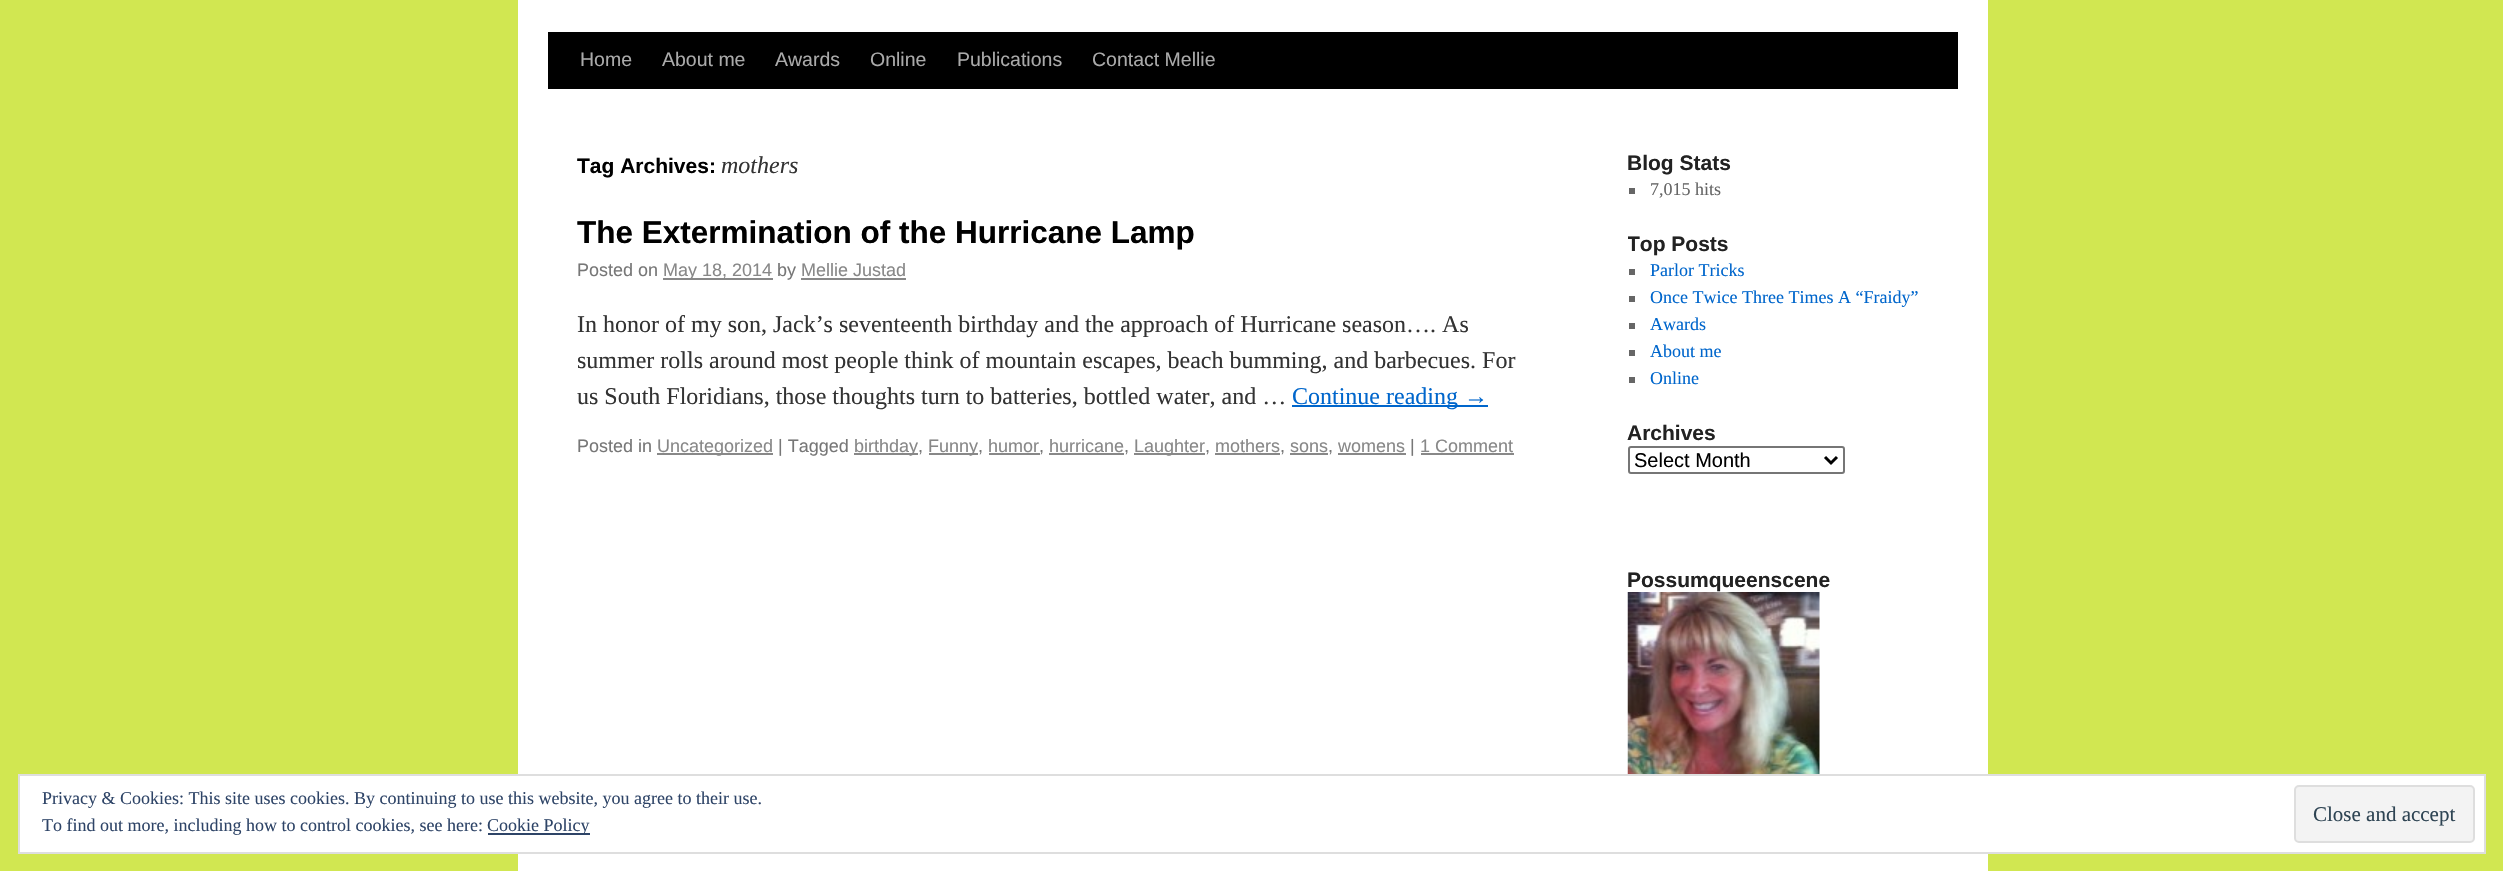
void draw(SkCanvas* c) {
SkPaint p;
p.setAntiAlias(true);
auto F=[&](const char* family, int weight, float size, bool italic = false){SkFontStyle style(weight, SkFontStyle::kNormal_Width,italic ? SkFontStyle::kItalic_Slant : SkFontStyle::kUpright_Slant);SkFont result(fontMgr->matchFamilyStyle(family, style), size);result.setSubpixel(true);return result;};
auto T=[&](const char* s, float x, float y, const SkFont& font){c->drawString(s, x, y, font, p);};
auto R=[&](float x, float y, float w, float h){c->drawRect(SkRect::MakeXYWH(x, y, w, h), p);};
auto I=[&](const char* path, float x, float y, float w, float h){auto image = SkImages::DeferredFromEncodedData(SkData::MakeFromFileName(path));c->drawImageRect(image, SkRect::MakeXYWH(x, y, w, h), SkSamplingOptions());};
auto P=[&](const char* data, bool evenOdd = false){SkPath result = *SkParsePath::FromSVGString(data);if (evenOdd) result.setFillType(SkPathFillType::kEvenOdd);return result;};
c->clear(0xffd1e751);
p.setColor(0xffffffff);
R(518,0,1470,871);
p.setColor(0xff000000);
R(548,32,1410,57);
auto f1 = F("Liberation Sans",400,19.5);
p.setColor(0xffaaaaaa);
T("Home",580,66,f1);
T("About me",662,66,f1);
T("Awards",775,66,f1);
T("Online",870,66,f1);
T("Publications",957,66,f1);
T("Contact Mellie",1092,66,f1);
auto f2 = F("Liberation Sans",700,21);
p.setColor(0xff000000);
T("Tag Archives:",577,173,f2);
auto f3 = F("Liberation Serif",400,24,true);
p.setColor(0xff333333);
T("mothers",721,173,f3);
auto f4 = F("Liberation Sans",700,31.5);
p.setColor(0xff000000);
T("The Extermination of the Hurricane Lamp",577,243,f4);
auto f5 = F("Liberation Sans",400,18);
p.setColor(0xff777777);
T("Posted on",577,276,f5);
p.setColor(0xff888888);
R(663,278,110,2);
T("May 18, 2014",663,276,f5);
p.setColor(0xff777777);
T("by",777,276,f5);
p.setColor(0xff888888);
T("Mellie Justad",801,276,f5);
R(801,278,105,2);
auto f6 = F("Liberation Serif",400,24);
p.setColor(0xff333333);
T("In honor of my son, Jack’s seventeenth birthday and the approach of Hurricane season…. As",577,332,f6);
T("summer rolls around most people think of mountain escapes, beach bumming, and barbecues. For",577,368,f6);
T("us South Floridians, those thoughts turn to batteries, bottled water, and …",577,404,f6);
p.setColor(0xff0066cc);
R(1292,405,196,2);
T("Continue reading →",1292,404,f6);
p.setColor(0xff777777);
T("Posted in",577,452,f5);
p.setColor(0xff888888);
R(657,453,116,2);
T("Uncategorized",657,452,f5);
p.setColor(0xff777777);
T("| Tagged",778,452,f5);
p.setColor(0xff888888);
R(854,453,64,2);
T("birthday",854,452,f5);
p.setColor(0xff777777);
T(",",918,452,f5);
p.setColor(0xff888888);
R(929,453,49,2);
T("Funny",928,452,f5);
p.setColor(0xff777777);
T(",",978,452,f5);
p.setColor(0xff888888);
T("humor",988,452,f5);
p.setColor(0xff777777);
T(",",1039,452,f5);
p.setColor(0xff888888);
R(989,453,51,2);
T("hurricane",1049,452,f5);
p.setColor(0xff777777);
T(",",1124,452,f5);
p.setColor(0xff888888);
R(1049,453,75,2);
R(1134,453,71,2);
T("Laughter",1134,452,f5);
p.setColor(0xff777777);
T(",",1205,452,f5);
p.setColor(0xff888888);
T("mothers",1215,452,f5);
p.setColor(0xff777777);
T(",",1280,452,f5);
p.setColor(0xff888888);
R(1215,453,65,2);
T("sons",1290,452,f5);
p.setColor(0xff777777);
T(",",1328,452,f5);
p.setColor(0xff888888);
R(1290,453,38,2);
R(1338,453,68,2);
T("womens",1338,452,f5);
p.setColor(0xff777777);
T("|",1410,452,f5);
p.setColor(0xff888888);
T("1 Comment",1420,452,f5);
R(1421,453,93,2);
p.setColor(0xff222222);
T("Blog Stats",1627,170,f2);
p.setColor(0xff666666);
R(1629,188,6,6);
auto f7 = F("Liberation Serif",400,18);
T("7,015 hits",1650,195,f7);
c->save();
c->clipRect(SkRect::MakeXYWH(1628,149,330,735));
p.setColor(0xff222222);
T("Top Posts",1627,251,f2);
c->restore();
p.setColor(0xff666666);
R(1629,269,6,6);
p.setColor(0xff0066cc);
T("Parlor Tricks",1650,276,f7);
p.setColor(0xff666666);
R(1629,296,6,6);
p.setColor(0xff0066cc);
T("Once Twice Three Times A “Fraidy”",1650,303,f7);
p.setColor(0xff666666);
R(1629,323,6,6);
p.setColor(0xff0066cc);
T("Awards",1650,330,f7);
p.setColor(0xff666666);
R(1629,350,6,6);
p.setColor(0xff0066cc);
T("About me",1650,357,f7);
p.setColor(0xff666666);
R(1629,377,6,6);
p.setColor(0xff0066cc);
T("Online",1650,384,f7);
p.setColor(0xff222222);
T("Archives",1627,440,f2);
p.setStroke(true);
p.setStrokeWidth(2);
p.setColor(0xff767676);
c->drawRoundRect(SkRect::MakeXYWH(1629,447,215,26),2,2,p);
p.setStrokeWidth(3);
p.setColor(0xff000000);
c->drawPath(P("M1825 457l6 6l6-6"),p);
auto f8 = F("Liberation Sans",400,20);
p.setStroke(false);
T("Select Month",1634,467,f8);
p.setColor(0xff222222);
T("Possumqueenscene",1627,587,f2);
I("1.png",1627,592,193,182);
p.setColor(0xffffffff);
c->drawRect(SkRect::MakeXYWH(19,775,2466,78),p);
p.setStroke(true);
p.setStrokeWidth(2);
p.setColor(0xffdedede);
c->drawRect(SkRect::MakeXYWH(19,775,2466,78),p);
p.setStroke(false);
p.setColor(0xff2e4467);
T("Privacy & Cookies: This site uses cookies. By continuing to use this website, you agree to their use.",42,804,f7);
T("To find out more, including how to control cookies, see here:",42,831,f7);
R(488,833,102,2);
T("Cookie Policy",487,831,f7);
p.setColor(0xfff3f3f3);
c->drawRoundRect(SkRect::MakeXYWH(2295,786,179,56),4,4,p);
p.setStroke(true);
p.setColor(0xffdedede);
c->drawRoundRect(SkRect::MakeXYWH(2295,786,179,56),4,4,p);
auto f9 = F("Liberation Serif",400,21);
p.setStroke(false);
p.setColor(0xff2e4453);
T("Close and accept",2313,821,f9);
}
